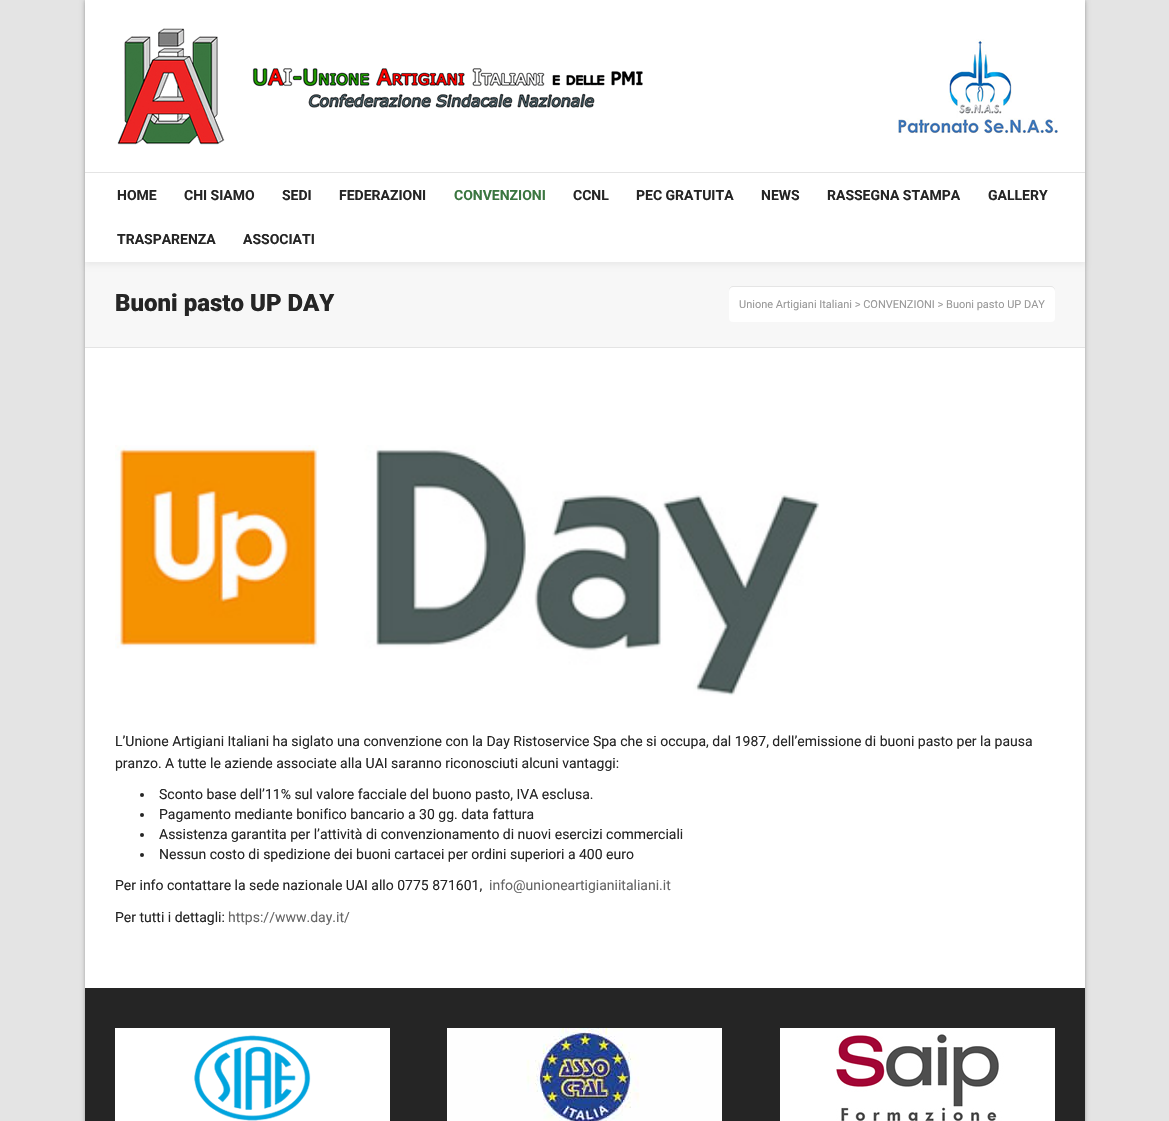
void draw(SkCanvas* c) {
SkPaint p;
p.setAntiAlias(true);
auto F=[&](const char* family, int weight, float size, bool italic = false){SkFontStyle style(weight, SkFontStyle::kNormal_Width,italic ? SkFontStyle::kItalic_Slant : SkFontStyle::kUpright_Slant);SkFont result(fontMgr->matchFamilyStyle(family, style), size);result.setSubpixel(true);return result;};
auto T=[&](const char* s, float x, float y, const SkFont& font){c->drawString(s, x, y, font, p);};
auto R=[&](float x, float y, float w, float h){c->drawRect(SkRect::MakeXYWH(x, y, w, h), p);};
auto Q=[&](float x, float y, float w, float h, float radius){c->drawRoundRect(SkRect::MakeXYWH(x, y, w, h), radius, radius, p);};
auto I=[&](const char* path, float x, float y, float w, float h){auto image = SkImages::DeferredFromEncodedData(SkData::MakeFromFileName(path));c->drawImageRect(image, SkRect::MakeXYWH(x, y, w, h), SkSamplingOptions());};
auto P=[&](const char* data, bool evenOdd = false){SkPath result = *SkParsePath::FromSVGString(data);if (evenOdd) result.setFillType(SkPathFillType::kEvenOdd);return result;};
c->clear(0xffe4e4e4);
p.setColor(0x4d000000);
p.setMaskFilter(SkMaskFilter::MakeBlur(kNormal_SkBlurStyle, 2));
c->drawRect(SkRect::MakeXYWH(85,0,1000,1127),p);
p.setMaskFilter(nullptr);
p.setColor(0xffffffff);
R(85,348,1000,640);
p.setColor(0xfff7f7f7);
R(85,262,1000,85);
p.setColor(0x0d000000);
p.setMaskFilter(SkMaskFilter::MakeBlur(kNormal_SkBlurStyle, 2.5));
c->drawRect(SkRect::MakeXYWH(85,3,1000,262),p);
p.setMaskFilter(nullptr);
p.setColor(0xffffffff);
R(85,0,1000,262);
I("1.png",117,28,526,117);
I("2.png",898,39,160,95);
p.setColor(0xffe4e4e4);
R(85,172,1000,1);
auto f1 = F("Roboto",700,14);
p.setColor(0xff252525);
T("HOME",117,200,f1);
T("CHI SIAMO",184,200,f1);
T("SEDI",282,200,f1);
T("FEDERAZIONI",339,200,f1);
p.setColor(0xff3a7640);
T("CONVENZIONI",454,200,f1);
p.setColor(0xff252525);
T("CCNL",573,200,f1);
T("PEC GRATUITA",636,200,f1);
T("NEWS",761,200,f1);
T("RASSEGNA STAMPA",827,200,f1);
T("GALLERY",988,200,f1);
T("TRASPARENZA",117,244,f1);
T("ASSOCIATI",243,244,f1);
p.setColor(0xffe4e4e4);
R(85,347,1000,1);
auto f2 = F("Roboto",900,24);
p.setColor(0xff252525);
T("Buoni pasto UP DAY",115,311,f2);
p.setColor(0xffffffff);
Q(729,286,326,36,4);
p.setColor(0x1a000000);
c->drawPath(P("M733 287h318c2 0 4 2 4 4v-1c0-2-2-4-4-4h-318c-2 0-4 2-4 4v1c0-2 2-4 4-4z"),p);
auto f3 = F("Roboto",400,11);
p.setColor(0xff999999);
T("Unione Artigiani Italiani > CONVENZIONI > Buoni pasto UP DAY",739,308,f3);
I("3.png",115,445,705,251);
auto f4 = F("Roboto",400,14);
p.setColor(0xff252525);
T("L’Unione Artigiani Italiani ha siglato una convenzione con la Day Ristoservice Spa che si occupa, dal 1987, dell’emissione di buoni pasto per la pausa",115,746,f4);
T("pranzo. A tutte le aziende associate alla UAI saranno riconosciuti alcuni vantaggi:",115,768,f4);
c->drawCircle(142,795,2,p);
T("Sconto base dell’11% sul valore facciale del buono pasto, IVA esclusa.",159,799,f4);
c->drawCircle(142,815,2,p);
T("Pagamento mediante bonifico bancario a 30 gg. data fattura",159,819,f4);
c->drawCircle(142,835,2,p);
T("Assistenza garantita per l’attività di convenzionamento di nuovi esercizi commerciali",159,839,f4);
c->drawCircle(142,855,2,p);
T("Nessun costo di spedizione dei buoni cartacei per ordini superiori a 400 euro",159,859,f4);
T("Per info contattare la sede nazionale UAI allo 0775 871601,",115,890,f4);
p.setColor(0xff666666);
T("info@unioneartigianiitaliani.it",489,890,f4);
p.setColor(0xff252525);
T("Per tutti i dettagli:",115,922,f4);
p.setColor(0xff666666);
T("https://www.day.it/",228,922,f4);
p.setColor(0xff252525);
R(85,988,1000,133);
I("4.png",115,1028,275,93);
I("5.png",447,1028,275,93);
I("6.png",780,1028,275,93);
}
